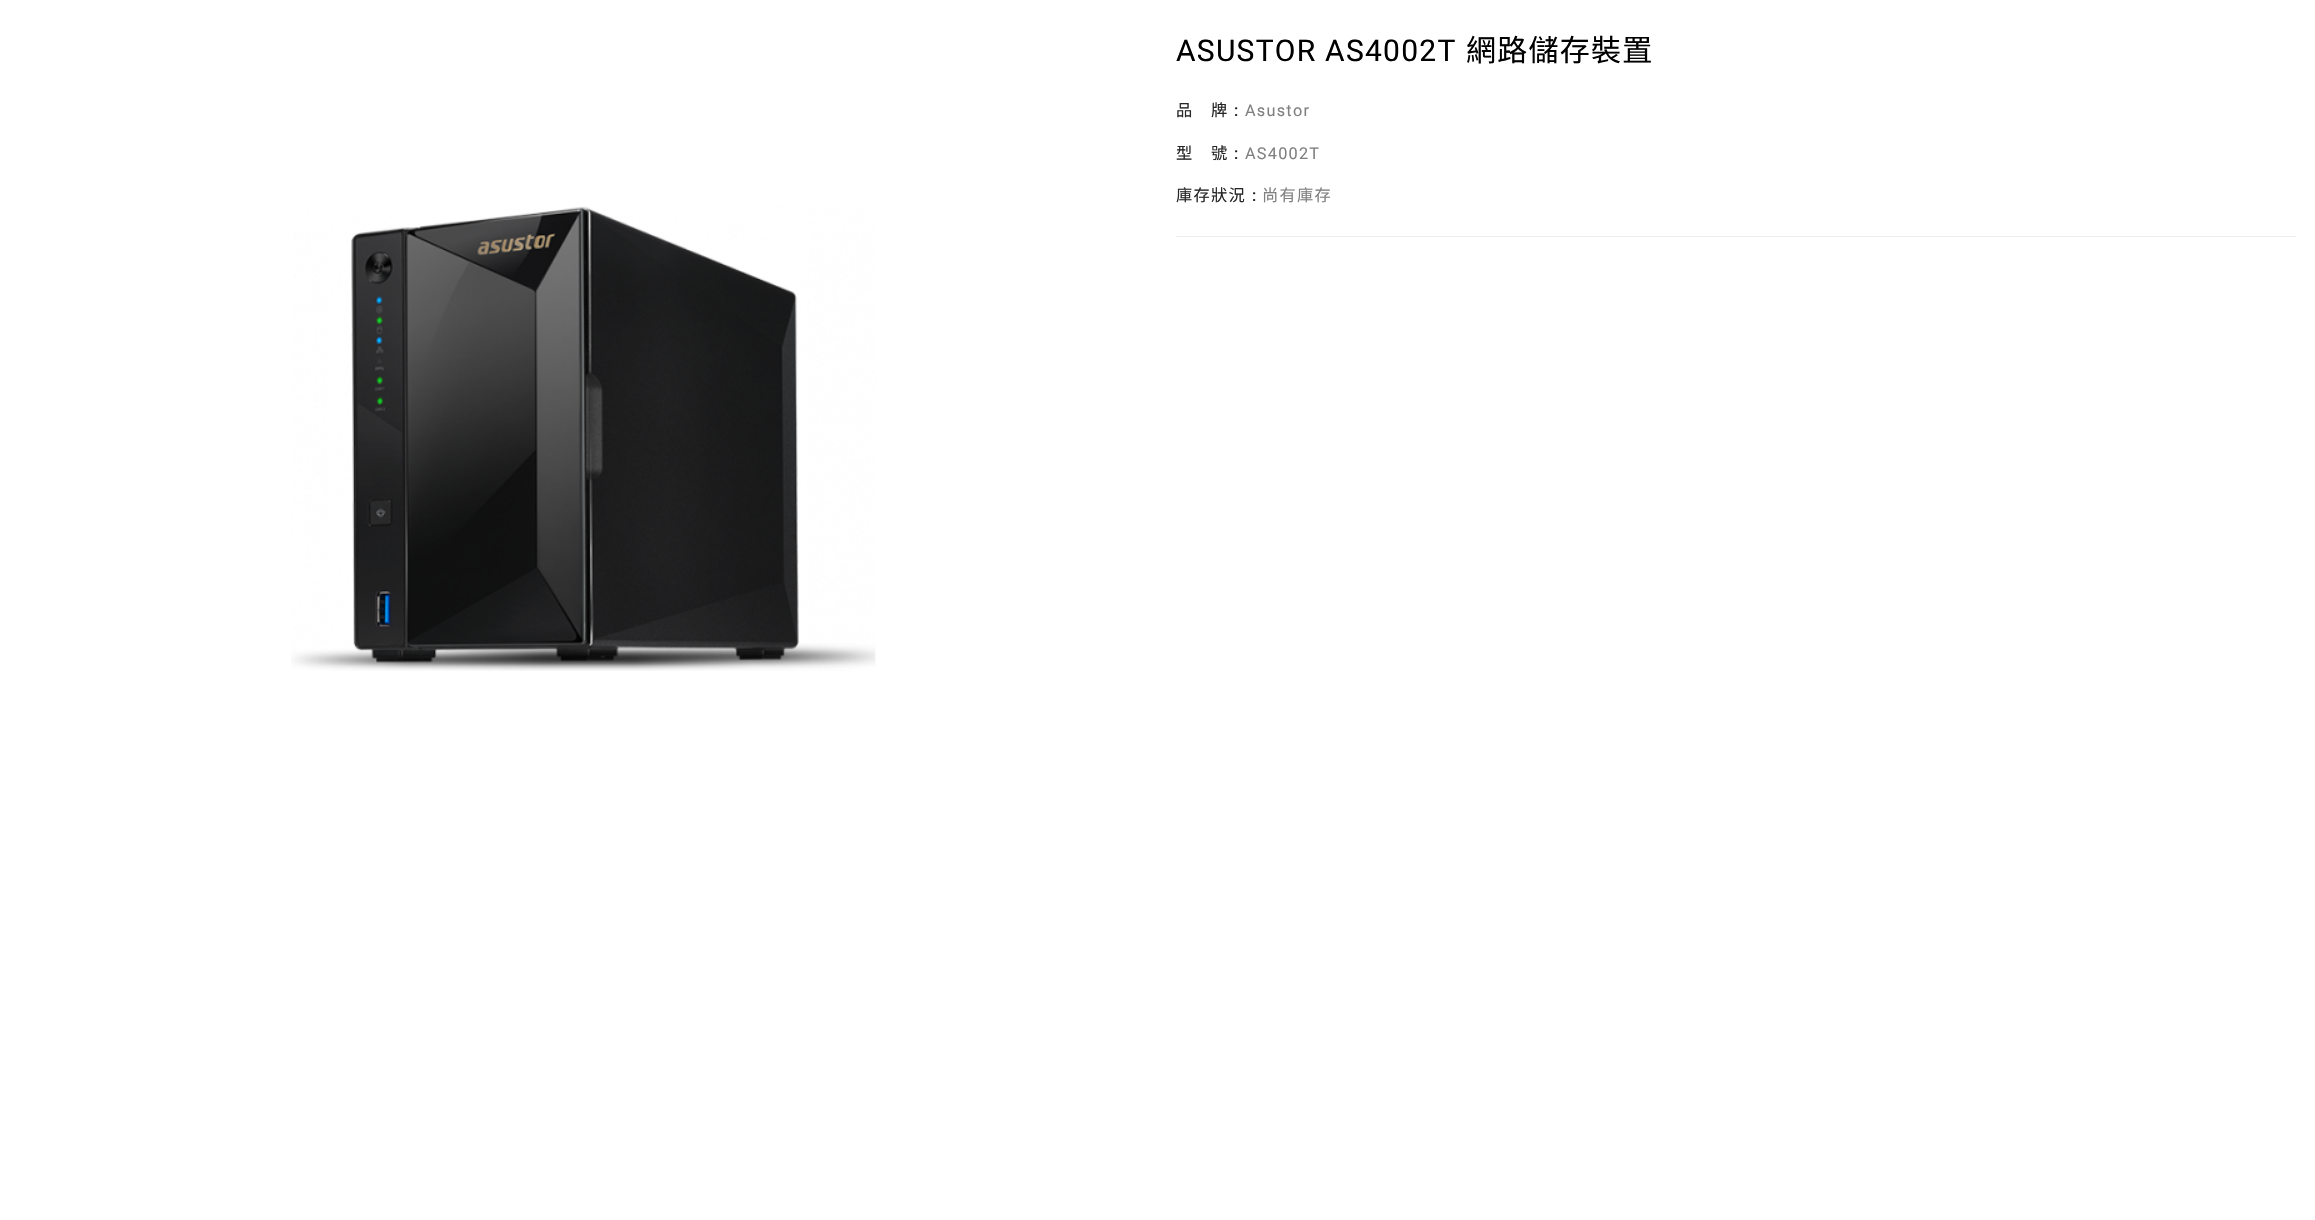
void draw(SkCanvas* c) {
SkPaint p;
p.setAntiAlias(true);
auto F=[&](const char* family, int weight, float size, bool italic = false){SkFontStyle style(weight, SkFontStyle::kNormal_Width,italic ? SkFontStyle::kItalic_Slant : SkFontStyle::kUpright_Slant);SkFont result(fontMgr->matchFamilyStyle(family, style), size);result.setSubpixel(true);return result;};
auto L=[&](const char* s, float x, float y, const SkFont& font, const SkPaint& ink, float letter, float word){std::vector<SkGlyphID> glyphs(font.countText(s, strlen(s), SkTextEncoding::kUTF8));std::vector<float> xs(glyphs.size());font.textToGlyphs(s, strlen(s), SkTextEncoding::kUTF8, glyphs);font.getXPos(glyphs, xs, x);float extra = 0;for (size_t i = 0; i < glyphs.size(); i++) {xs[i] += extra;extra += letter + word * (glyphs[i] == font.unicharToGlyph(' '));}c->drawTextBlob(SkTextBlob::MakeFromPosHGlyphs(glyphs, xs, y, font), 0, 0, ink);};
auto R=[&](float x, float y, float w, float h){c->drawRect(SkRect::MakeXYWH(x, y, w, h), p);};
auto I=[&](const char* path, float x, float y, float w, float h){auto image = SkImages::DeferredFromEncodedData(SkData::MakeFromFileName(path));c->drawImageRect(image, SkRect::MakeXYWH(x, y, w, h), SkSamplingOptions());};
c->clear(0xffffffff);
auto f1 = F("Roboto",400,30);
p.setColor(0xff000000);
L("ASUSTOR AS4002T",1176,61,f1,p,1.25,0);
auto f2 = F("Noto Sans CJK HK",400,30);
L("網路儲存裝置",1466,61,f2,p,1.25,0);
p.setColor(0xffeeeeee);
R(1176,236,1120,1);
auto f3 = F("Noto Sans CJK HK",400,16.25);
p.setColor(0xff262626);
L("品　牌",1176,116,f3,p,1.25,0);
auto f4 = F("Roboto",500,16.25);
L(":",1234,116,f4,p,1.25,0);
auto f5 = F("Roboto",400,16.25);
p.setColor(0xff808080);
L("Asustor",1245,116,f5,p,1.25,0);
p.setColor(0xff262626);
L("型　號",1176,159,f3,p,1.25,0);
L(":",1234,159,f4,p,1.25,0);
p.setColor(0xff808080);
L("AS4002T",1245,159,f5,p,1.25,0);
p.setColor(0xff262626);
L("庫存狀況",1176,201,f3,p,1.25,0);
L(":",1252,201,f4,p,1.25,0);
p.setColor(0xff808080);
L("尚有庫存",1262,201,f3,p,1.25,0);
I("1.png",291,206,585,465);
}
